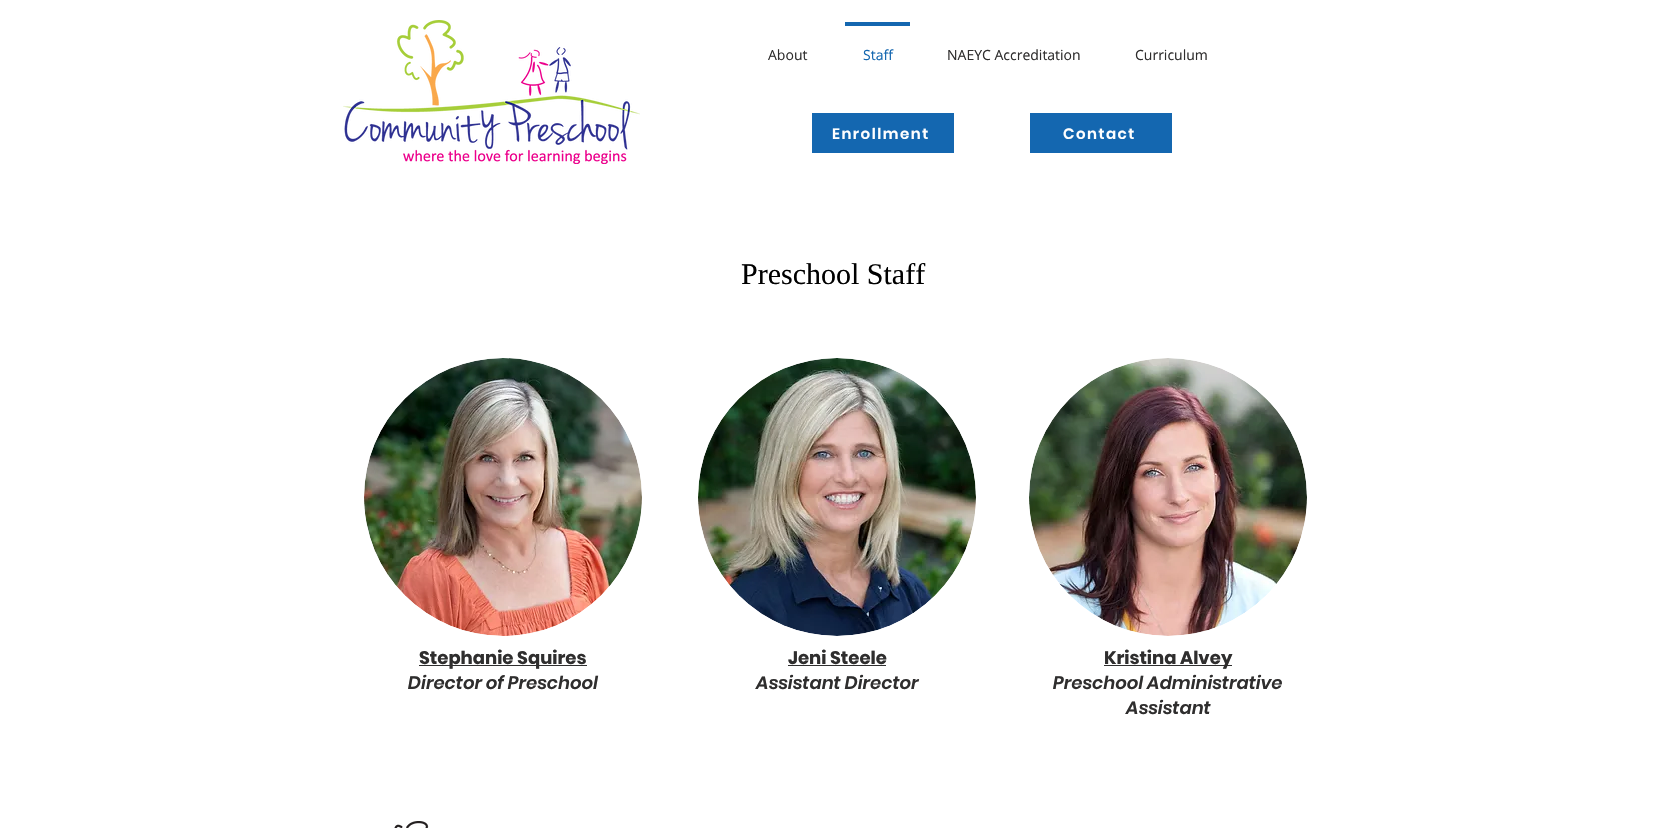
void draw(SkCanvas* c) {
SkPaint p;
p.setAntiAlias(true);
auto F=[&](const char* family, int weight, float size, bool italic = false){SkFontStyle style(weight, SkFontStyle::kNormal_Width,italic ? SkFontStyle::kItalic_Slant : SkFontStyle::kUpright_Slant);SkFont result(fontMgr->matchFamilyStyle(family, style), size);result.setSubpixel(true);return result;};
auto T=[&](const char* s, float x, float y, const SkFont& font){c->drawString(s, x, y, font, p);};
auto L=[&](const char* s, float x, float y, const SkFont& font, const SkPaint& ink, float letter, float word){std::vector<SkGlyphID> glyphs(font.countText(s, strlen(s), SkTextEncoding::kUTF8));std::vector<float> xs(glyphs.size());font.textToGlyphs(s, strlen(s), SkTextEncoding::kUTF8, glyphs);font.getXPos(glyphs, xs, x);float extra = 0;for (size_t i = 0; i < glyphs.size(); i++) {xs[i] += extra;extra += letter + word * (glyphs[i] == font.unicharToGlyph(' '));}c->drawTextBlob(SkTextBlob::MakeFromPosHGlyphs(glyphs, xs, y, font), 0, 0, ink);};
auto R=[&](float x, float y, float w, float h){c->drawRect(SkRect::MakeXYWH(x, y, w, h), p);};
auto I=[&](const char* path, float x, float y, float w, float h){auto image = SkImages::DeferredFromEncodedData(SkData::MakeFromFileName(path));c->drawImageRect(image, SkRect::MakeXYWH(x, y, w, h), SkSamplingOptions());};
c->clear(0xffffffff);
I("1.png",343,20,297,144);
auto f1 = F("Open Sans",400,14);
p.setColor(0xff2f2e2e);
T("About",768,60,f1);
p.setColor(0xff1467b0);
R(845,22,65,4);
T("Staff",863,60,f1);
p.setColor(0xff2f2e2e);
T("NAEYC Accreditation",947,60,f1);
T("Curriculum",1135,60,f1);
p.setColor(0xff1467b0);
R(812,113,142,40);
auto f2 = F("Poppins",600,15);
p.setColor(0xffffffff);
L("Enrollment",832,139,f2,p,1.5,0);
p.setColor(0xff1467b0);
R(1030,113,142,40);
p.setColor(0xffffffff);
L("Contact",1063,139,f2,p,1.5,0);
auto f3 = F("Liberation Serif",400,30);
p.setColor(0xff000000);
T("Preschool Staff",741,284,f3);
I("2.png",364,358,278,278);
I("3.png",698,358,278,278);
I("4.png",1029,358,278,278);
p.setColor(0xff2f2e2e);
R(419,665,168,1);
auto f4 = F("Poppins",700,18);
T("Stephanie Squires",419,664,f4);
auto f5 = F("Poppins",600,18,true);
T("Director of Preschool",408,689,f5);
T("Jeni Steele",788,664,f4);
R(788,665,98,1);
T("Assistant Director",756,689,f5);
R(1104,665,128,1);
T("Kristina Alvey",1104,664,f4);
T("Preschool Administrative",1053,689,f5);
T("Assistant",1126,714,f5);
I("5.png",394,821,35,7);
}
